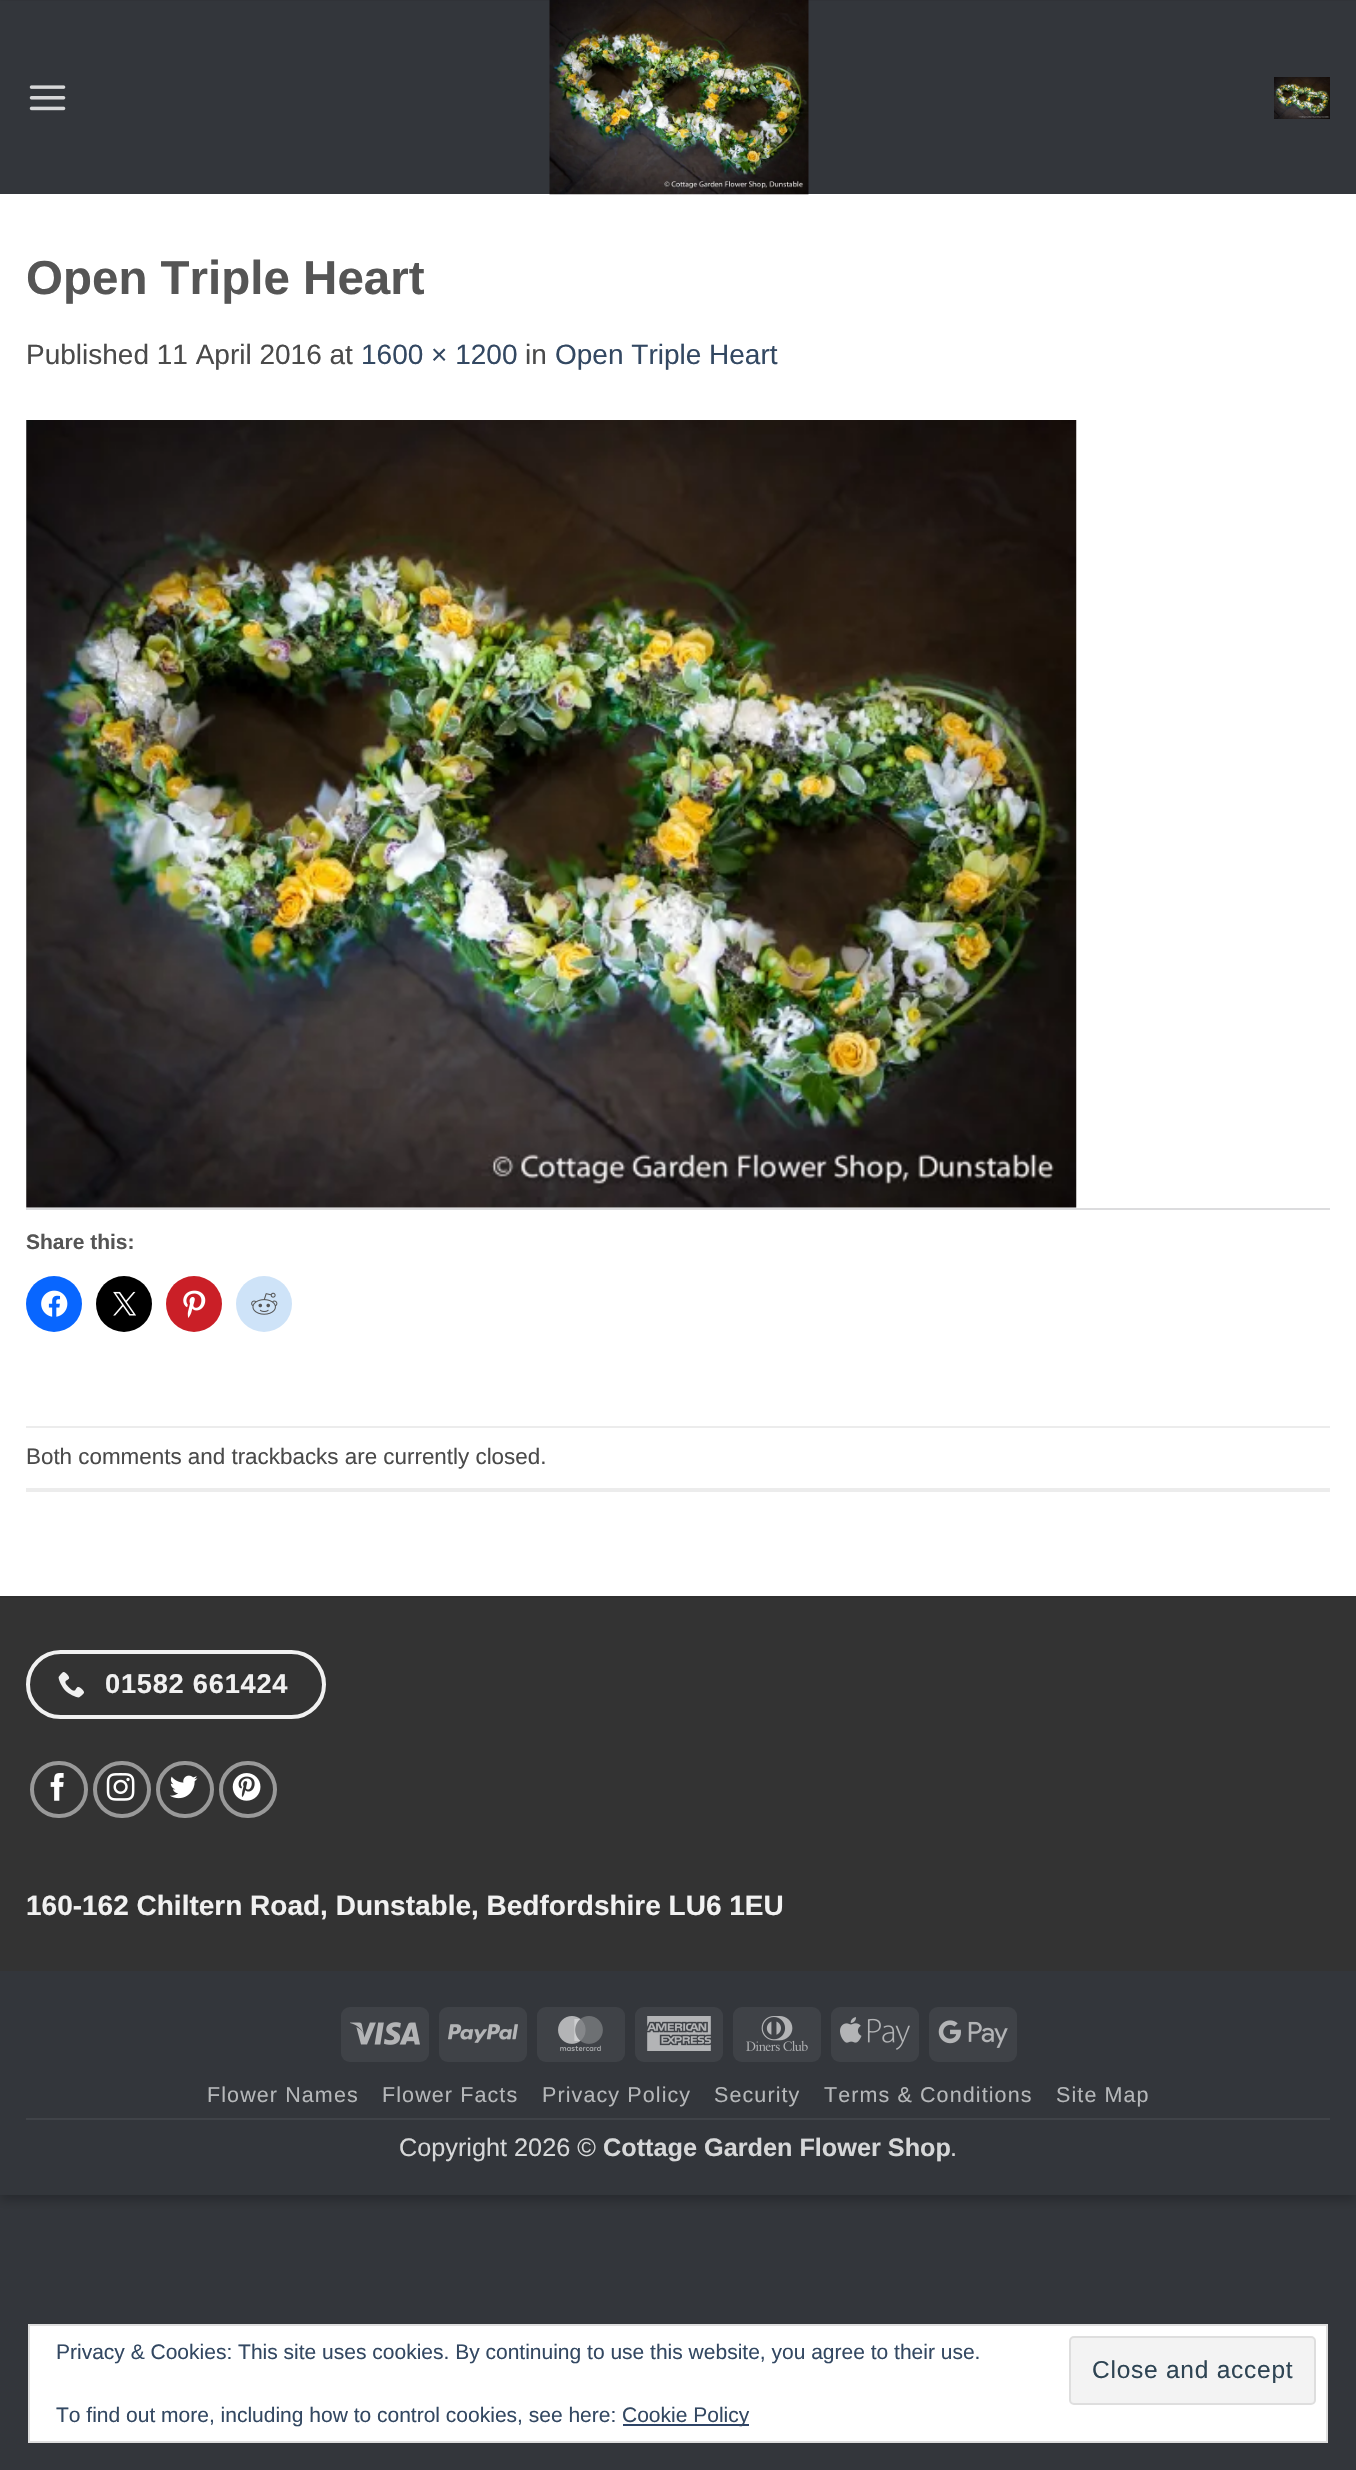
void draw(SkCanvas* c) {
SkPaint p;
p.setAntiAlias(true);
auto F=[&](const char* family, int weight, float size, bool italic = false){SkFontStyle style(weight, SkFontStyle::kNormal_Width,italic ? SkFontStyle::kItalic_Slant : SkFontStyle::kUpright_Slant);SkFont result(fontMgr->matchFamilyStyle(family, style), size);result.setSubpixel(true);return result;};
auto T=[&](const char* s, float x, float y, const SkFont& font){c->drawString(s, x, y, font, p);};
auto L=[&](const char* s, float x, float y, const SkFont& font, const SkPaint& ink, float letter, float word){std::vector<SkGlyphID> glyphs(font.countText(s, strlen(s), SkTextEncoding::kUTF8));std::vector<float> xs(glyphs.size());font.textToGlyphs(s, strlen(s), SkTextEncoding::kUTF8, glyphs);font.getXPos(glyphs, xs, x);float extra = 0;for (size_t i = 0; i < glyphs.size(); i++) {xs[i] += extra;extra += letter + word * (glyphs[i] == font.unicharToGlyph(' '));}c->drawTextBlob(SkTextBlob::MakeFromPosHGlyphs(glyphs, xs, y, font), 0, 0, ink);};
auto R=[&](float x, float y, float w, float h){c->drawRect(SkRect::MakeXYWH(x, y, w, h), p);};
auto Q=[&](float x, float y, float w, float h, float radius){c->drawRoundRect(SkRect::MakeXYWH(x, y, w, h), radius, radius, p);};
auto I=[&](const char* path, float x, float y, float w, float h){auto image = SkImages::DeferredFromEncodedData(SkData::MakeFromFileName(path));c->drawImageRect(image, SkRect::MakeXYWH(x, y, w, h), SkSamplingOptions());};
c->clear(0xff33363b);
p.setColor(0x3b000000);
p.setMaskFilter(SkMaskFilter::MakeBlur(kNormal_SkBlurStyle, 5));
c->drawRect(SkRect::MakeXYWH(0,5,1356,2195),p);
p.setMaskFilter(nullptr);
p.setColor(0xffffffff);
R(0,194,1356,1402);
p.setColor(0xff33363b);
R(0,1,1356,193);
I("1.png",29,85,37,26);
I("2.png",549,0,260,195);
I("3.png",1274,77,56,42);
auto f1 = F("Liberation Sans",700,47.5);
p.setColor(0xff555555);
T("Open Triple Heart",26,294,f1);
auto f2 = F("Liberation Sans",400,28);
p.setColor(0xff4a4a4a);
T("Published 11 April 2016 at",26,364,f2);
p.setColor(0xff334862);
T("1600 × 1200",361,364,f2);
p.setColor(0xff4a4a4a);
T("in",525,364,f2);
p.setColor(0xff334862);
T("Open Triple Heart",555,364,f2);
I("4.png",26,420,1051,788);
p.setColor(0xffdcdcde);
R(26,1208,1304,2);
auto f3 = F("Liberation Sans",700,21);
p.setColor(0xff555555);
T("Share this:",26,1249,f3);
p.setColor(0xff0866ff);
c->drawCircle(54,1304,28,p);
I("5.png",41,1290,27,27);
p.setColor(0xff000000);
c->drawCircle(124,1304,28,p);
I("6.png",113,1291,23,25);
p.setColor(0xffca1f27);
c->drawCircle(194,1304,28,p);
I("7.png",183,1290,23,28);
p.setColor(0xffcee3f8);
c->drawCircle(264,1304,28,p);
I("8.png",251,1292,27,23);
p.setColor(0xffececec);
R(26,1426,1304,2);
R(26,1488,1304,4);
auto f4 = F("Liberation Sans",400,22.4);
p.setColor(0xff4a4a4a);
T("Both comments and trackbacks are currently closed.",26,1464,f4);
p.setColor(0xff333333);
R(0,1598,1356,373);
p.setColor(0xff303030);
R(0,1596,1356,2);
p.setStroke(true);
p.setStrokeWidth(4);
p.setColor(0xfff1f1f1);
c->drawRoundRect(SkRect::MakeXYWH(28,1652,296,65),32.5,32.5,p);
I("9.png",58,1672,26,26);
auto f5 = F("Liberation Sans",700,27.25);
p.setStroke(false);
L("01582 661424",105,1693,f5,p,.75,0);
p.setStroke(true);
p.setColor(0xff999999);
c->drawRoundRect(SkRect::MakeXYWH(32,1763,54,53),26.5,26.5,p);
I("10.png",50,1773,14,28);
c->drawRoundRect(SkRect::MakeXYWH(95,1763,54,53),26.5,26.5,p);
I("11.png",106,1773,29,28);
c->drawRoundRect(SkRect::MakeXYWH(158,1763,54,53),26.5,26.5,p);
I("12.png",170,1775,28,24);
c->drawRoundRect(SkRect::MakeXYWH(221,1763,54,53),26.5,26.5,p);
I("13.png",232,1773,29,28);
auto f6 = F("Liberation Sans",700,28);
p.setStroke(false);
p.setColor(0xfff1f1f1);
T("160-162 Chiltern Road, Dunstable, Bedfordshire LU6 1EU",26,1915,f6);
p.setColor(0xff33363b);
R(0,1971,1356,224);
p.setColor(0xff3f4247);
Q(341,2007,88,55,9);
I("14.png",350,2022,70,23);
Q(439,2007,88,55,9);
I("15.png",448,2024,70,19);
Q(537,2007,88,55,9);
I("16.png",558,2016,45,35);
Q(635,2007,88,55,9);
I("17.png",647,2016,64,35);
Q(733,2007,88,55,9);
I("18.png",746,2016,62,35);
Q(831,2007,88,55,9);
I("19.png",840,2017,70,33);
Q(929,2007,88,55,9);
I("20.png",938,2020,70,28);
p.setColor(0xff404348);
R(26,2118,1304,2);
auto f7 = F("Liberation Sans",400,21.5);
p.setColor(0xffb5b7b9);
L("Flower Names",207,2102,f7,p,1.1,0);
L("Flower Facts",382,2102,f7,p,1.1,0);
L("Privacy Policy",542,2102,f7,p,1.1,0);
L("Security",714,2102,f7,p,1.1,0);
L("Terms & Conditions",824,2102,f7,p,1.1,0);
L("Site Map",1056,2102,f7,p,1.1,0);
auto f8 = F("Liberation Sans",400,25.25);
p.setColor(0xffd6d7d8);
T("Copyright 2026 ©",399,2156,f8);
auto f9 = F("Liberation Sans",700,25.25);
T("Cottage Garden Flower Shop",603,2156,f9);
T(".",950,2156,f8);
p.setColor(0xffffffff);
c->drawRect(SkRect::MakeXYWH(29,2325,1298,117),p);
p.setStroke(true);
p.setStrokeWidth(2);
p.setColor(0xffdedede);
c->drawRect(SkRect::MakeXYWH(29,2325,1298,117),p);
auto f10 = F("Liberation Sans",400,21);
p.setStroke(false);
p.setColor(0xff334862);
T("Privacy & Cookies: This site uses cookies. By continuing to use this website, you agree to their use.",56,2359,f10);
p.setColor(0xfff3f3f3);
c->drawRoundRect(SkRect::MakeXYWH(1070,2337,245,67),4,4,p);
p.setStroke(true);
p.setColor(0xffdedede);
c->drawRoundRect(SkRect::MakeXYWH(1070,2337,245,67),4,4,p);
auto f11 = F("Liberation Sans",400,24.5);
p.setStroke(false);
p.setColor(0xff2e4453);
L("Close and accept",1092,2378,f11,p,.75,0);
p.setColor(0xff334862);
T("To find out more, including how to control cookies, see here:",56,2422,f10);
p.setColor(0xff2e4467);
R(623,2424,126,2);
p.setColor(0xff334862);
T("Cookie Policy",622,2422,f10);
}
